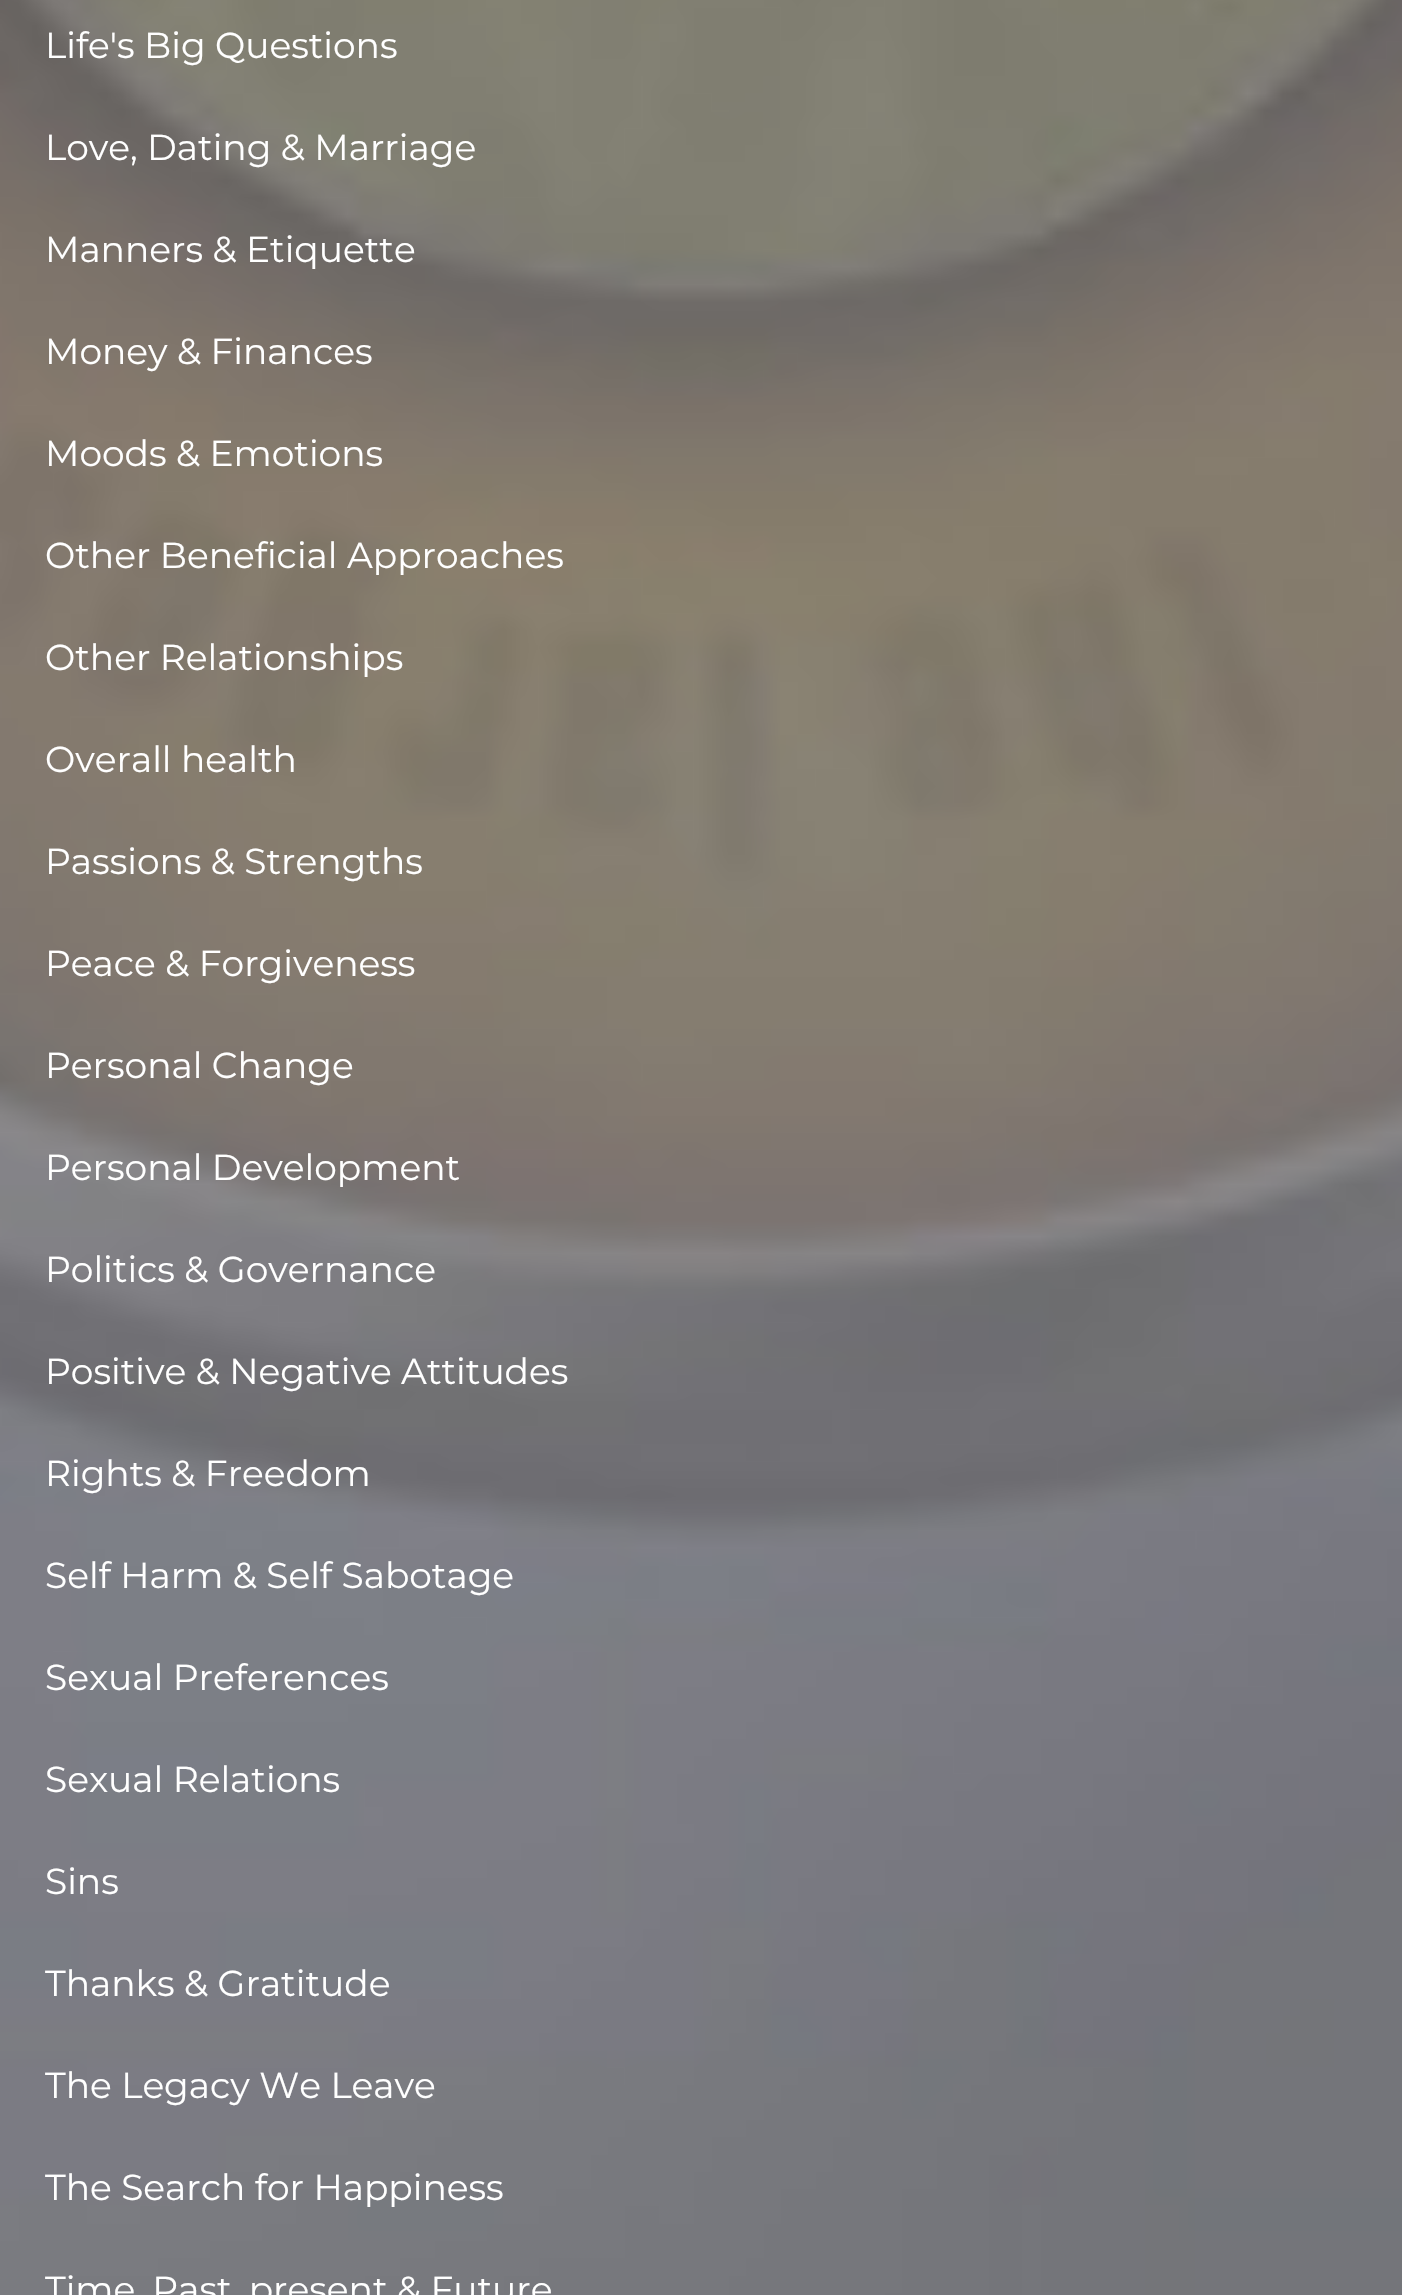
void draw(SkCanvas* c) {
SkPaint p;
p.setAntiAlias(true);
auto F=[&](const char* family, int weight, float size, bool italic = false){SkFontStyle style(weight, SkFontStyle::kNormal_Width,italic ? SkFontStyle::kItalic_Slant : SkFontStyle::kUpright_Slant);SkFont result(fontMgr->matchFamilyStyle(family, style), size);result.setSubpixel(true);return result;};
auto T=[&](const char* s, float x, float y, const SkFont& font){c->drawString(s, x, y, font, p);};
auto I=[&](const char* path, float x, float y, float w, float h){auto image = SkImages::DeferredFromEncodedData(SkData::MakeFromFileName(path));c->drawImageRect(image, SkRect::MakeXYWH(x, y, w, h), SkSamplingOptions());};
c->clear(0xffffffff);
I("1.png",0,0,1402,2295);
auto f1 = F("Montserrat",400,36);
p.setColor(0xffffffff);
T("Life's Big Questions",45,58,f1);
T("Love, Dating & Marriage",45,160,f1);
T("Manners & Etiquette",45,262,f1);
T("Money & Finances",45,364,f1);
T("Moods & Emotions",45,466,f1);
T("Other Beneficial Approaches",45,568,f1);
T("Other Relationships",45,670,f1);
T("Overall health",45,772,f1);
T("Passions & Strengths",45,874,f1);
T("Peace & Forgiveness",45,976,f1);
T("Personal Change",45,1078,f1);
T("Personal Development",45,1180,f1);
T("Politics & Governance",45,1282,f1);
T("Positive & Negative Attitudes",45,1384,f1);
T("Rights & Freedom",45,1486,f1);
T("Self Harm & Self Sabotage",45,1588,f1);
T("Sexual Preferences",45,1690,f1);
T("Sexual Relations",45,1792,f1);
T("Sins",45,1894,f1);
T("Thanks & Gratitude",45,1996,f1);
T("The Legacy We Leave",45,2098,f1);
T("The Search for Happiness",45,2200,f1);
T("Time. Past, present & Future",45,2302,f1);
}
